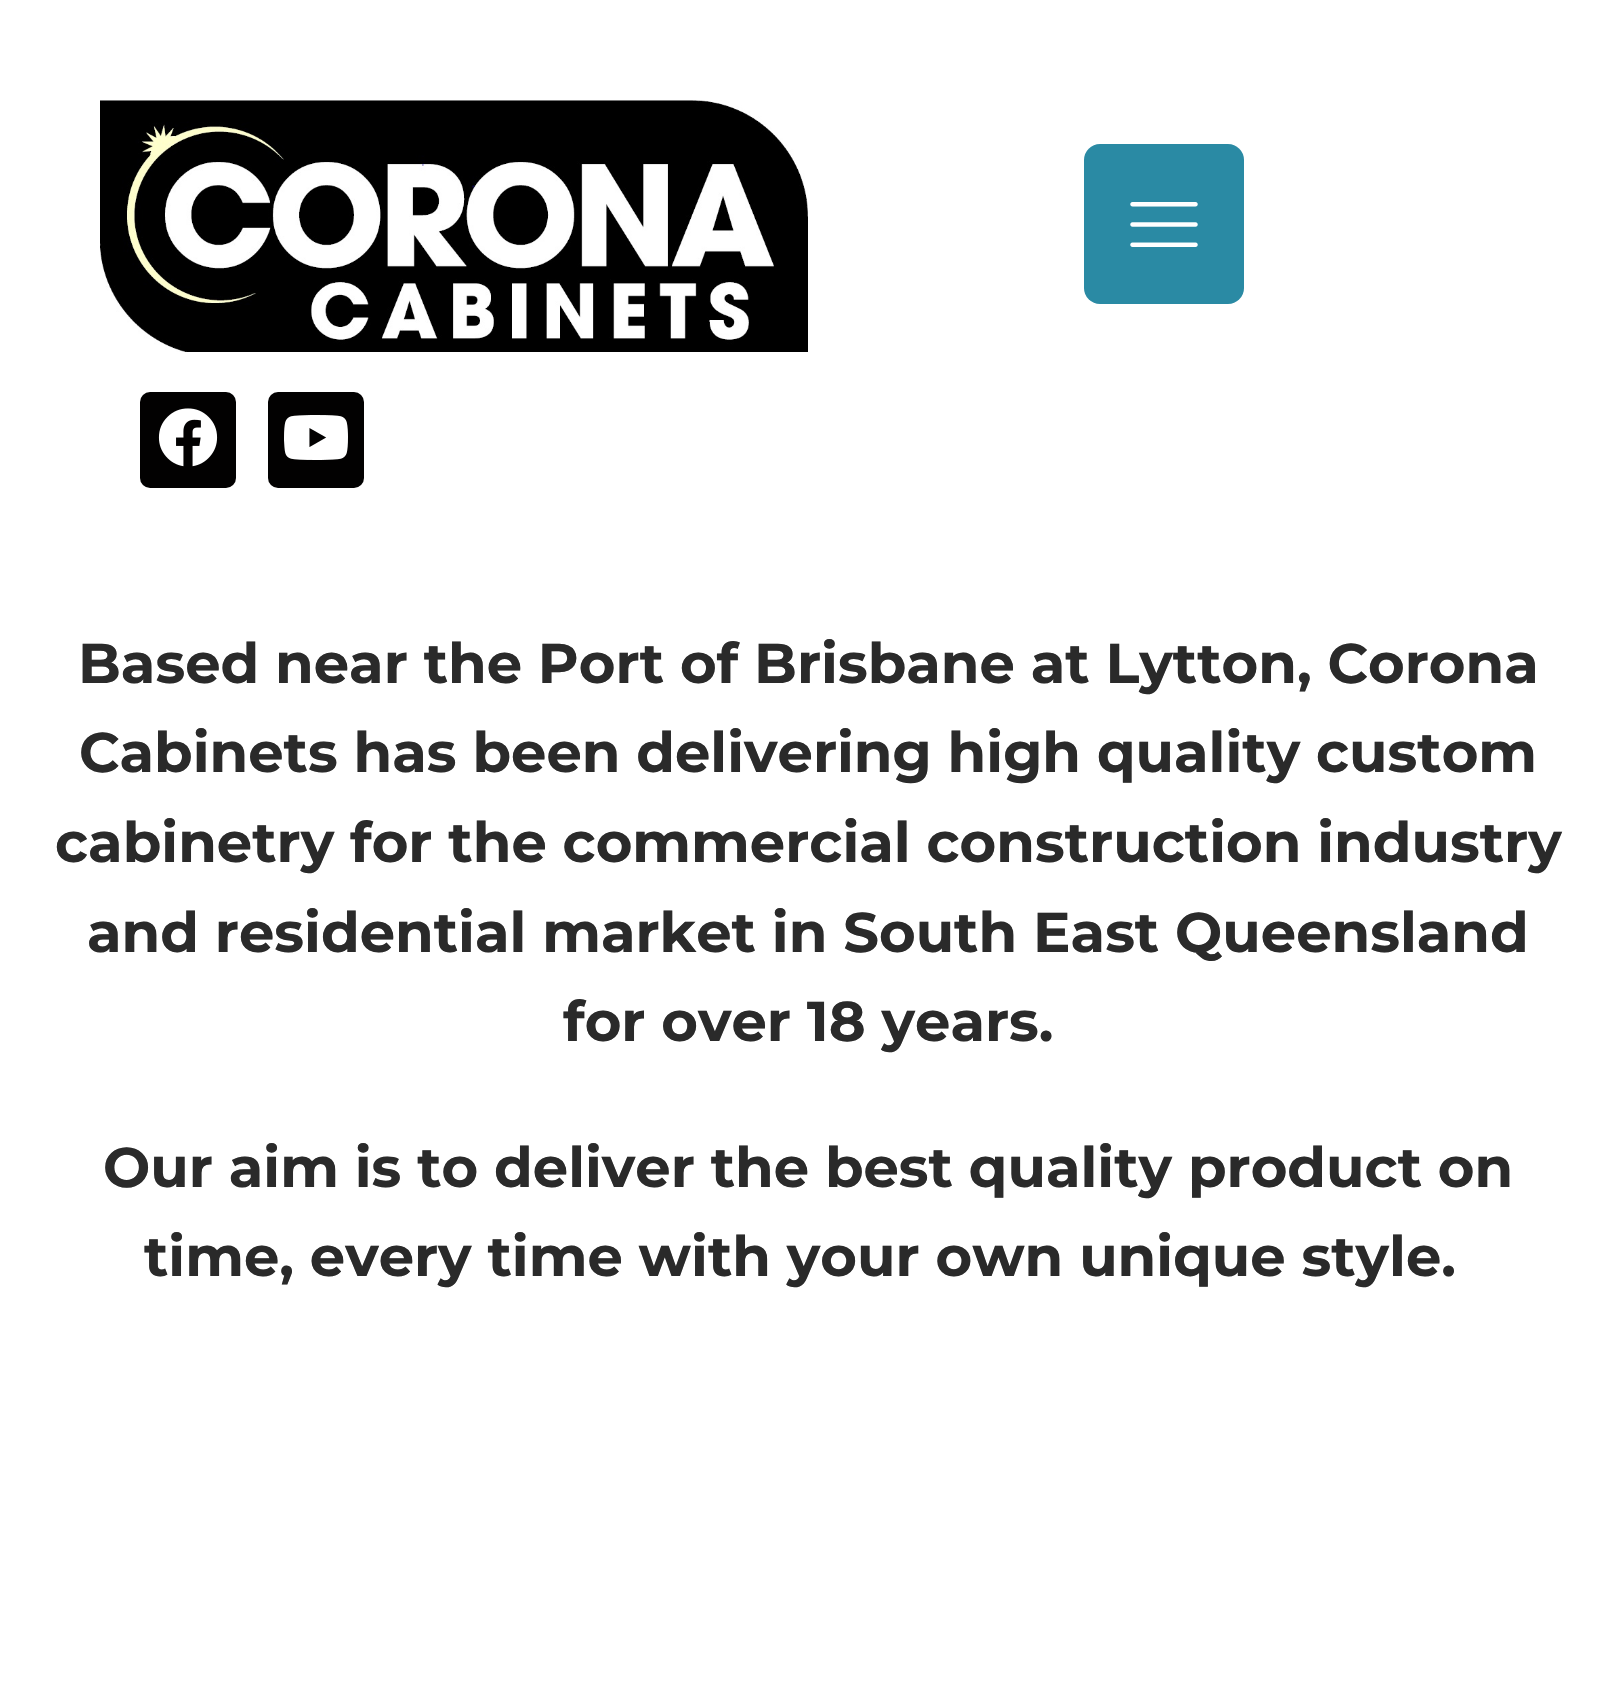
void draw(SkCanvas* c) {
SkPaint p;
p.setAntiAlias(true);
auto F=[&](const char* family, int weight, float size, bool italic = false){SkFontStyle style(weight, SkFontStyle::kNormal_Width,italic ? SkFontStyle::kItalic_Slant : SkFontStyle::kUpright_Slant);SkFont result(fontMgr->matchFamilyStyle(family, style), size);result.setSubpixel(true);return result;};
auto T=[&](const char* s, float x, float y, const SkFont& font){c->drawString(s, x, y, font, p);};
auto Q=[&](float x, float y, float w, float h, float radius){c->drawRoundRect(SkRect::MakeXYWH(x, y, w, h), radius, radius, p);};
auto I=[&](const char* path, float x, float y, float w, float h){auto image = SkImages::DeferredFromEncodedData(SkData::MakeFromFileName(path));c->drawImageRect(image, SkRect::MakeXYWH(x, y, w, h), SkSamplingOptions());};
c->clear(0xffffffff);
I("1.png",100,100,708,252);
p.setColor(0xff2a8aa4);
Q(1084,144,160,160,16);
I("2.png",1130,202,68,45);
p.setColor(0xff020101);
Q(140,392,96,96,10);
I("3.png",158,408,60,59);
Q(268,392,96,96,10);
I("4.png",284,415,64,45);
auto f1 = F("Montserrat",700,56);
p.setColor(0xff2a2a2a);
T("Based near the Port of Brisbane at Lytton, Corona",78,683,f1);
T("Cabinets has been delivering high quality custom",79,772,f1);
T("cabinetry for the commercial construction industry",55,862,f1);
T("and residential market in South East Queensland",87,952,f1);
T("for over 18 years.",563,1041,f1);
T("Our aim is to deliver the best quality product on",103,1187,f1);
T("time, every time with your own unique style.",144,1276,f1);
}
